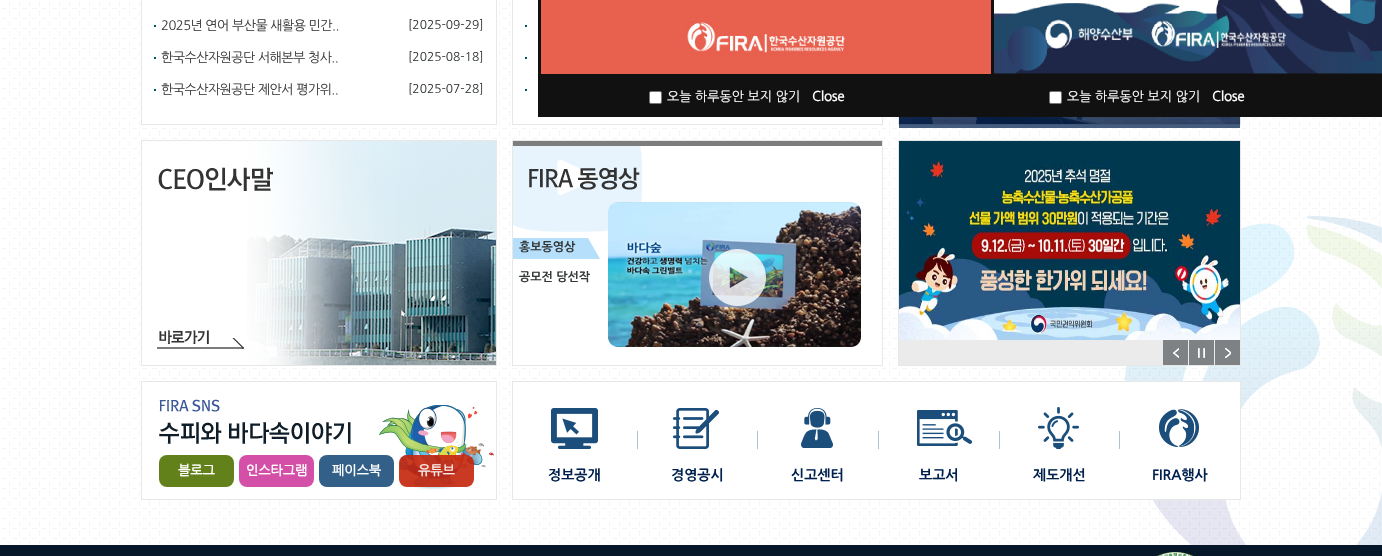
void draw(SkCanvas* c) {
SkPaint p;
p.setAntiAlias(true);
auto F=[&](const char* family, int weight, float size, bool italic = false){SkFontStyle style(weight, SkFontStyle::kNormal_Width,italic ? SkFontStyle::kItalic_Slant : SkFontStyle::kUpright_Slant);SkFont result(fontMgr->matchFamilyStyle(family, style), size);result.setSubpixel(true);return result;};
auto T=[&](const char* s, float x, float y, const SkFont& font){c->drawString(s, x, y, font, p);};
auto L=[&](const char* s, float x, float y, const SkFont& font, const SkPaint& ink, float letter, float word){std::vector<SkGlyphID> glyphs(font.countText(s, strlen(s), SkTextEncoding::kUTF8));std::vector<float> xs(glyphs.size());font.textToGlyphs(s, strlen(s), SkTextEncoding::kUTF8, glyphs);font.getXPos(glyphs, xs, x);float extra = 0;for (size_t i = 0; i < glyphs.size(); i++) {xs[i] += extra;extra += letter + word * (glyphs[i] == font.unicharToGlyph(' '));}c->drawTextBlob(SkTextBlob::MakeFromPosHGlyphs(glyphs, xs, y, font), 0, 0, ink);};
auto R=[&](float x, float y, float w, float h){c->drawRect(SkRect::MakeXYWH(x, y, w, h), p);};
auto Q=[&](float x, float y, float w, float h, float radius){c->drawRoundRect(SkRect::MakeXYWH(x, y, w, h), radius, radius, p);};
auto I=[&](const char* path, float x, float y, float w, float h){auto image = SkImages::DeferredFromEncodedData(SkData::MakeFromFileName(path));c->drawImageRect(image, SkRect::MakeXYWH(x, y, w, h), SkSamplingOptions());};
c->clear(0xffffffff);
I("1.png",2,1,1378,544);
p.setStroke(true);
p.setStrokeWidth(1);
p.setColor(0xffe7e7e7);
c->drawRect(SkRect::MakeXYWH(141.5,-.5,355,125),p);
p.setStroke(false);
p.setColor(0xffffffff);
R(142,1,354,123);
auto f1 = F("NanumGothic",400,13);
p.setColor(0xff3f3f3f);
L("2025년 연어 부산물 새활용 민간..",161,30,f1,p,-.5,0);
p.setColor(0xff005560);
R(154,25,2,2);
auto f2 = F("NanumGothic",400,12);
p.setColor(0xff343838);
T("[2025-09-29]",408,29,f2);
p.setColor(0xff3f3f3f);
L("한국수산자원공단 서해본부 청사..",161,62,f1,p,-.5,0);
p.setColor(0xff005560);
R(154,57,2,2);
p.setColor(0xff343838);
T("[2025-08-18]",408,61,f2);
p.setColor(0xff3f3f3f);
L("한국수산자원공단 제안서 평가위..",161,94,f1,p,-.5,0);
p.setColor(0xff005560);
R(154,89,2,2);
p.setColor(0xff343838);
T("[2025-07-28]",408,93,f2);
p.setStroke(true);
p.setColor(0xffe7e7e7);
c->drawRect(SkRect::MakeXYWH(512.5,-.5,370,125),p);
p.setStroke(false);
p.setColor(0xffffffff);
R(513,1,367,123);
p.setColor(0xff005560);
R(525,25,2,2);
R(525,57,2,2);
R(525,89,2,2);
p.setStroke(true);
p.setColor(0xffe7e7e7);
c->drawRect(SkRect::MakeXYWH(898.5,-.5,342,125),p);
I("2.png",899,117,341,7);
p.setStroke(false);
p.setColor(0xbf052653);
R(899,117,341,11);
p.setColor(0xffffffff);
R(142,141,105,224);
I("3.png",247,141,249,224);
p.setStroke(true);
p.setColor(0xffe7e7e7);
c->drawRect(SkRect::MakeXYWH(141.5,140.5,355,225),p);
I("4.png",158,167,115,24);
I("5.png",157,330,87,19);
p.setStroke(false);
p.setColor(0xffffffff);
R(513,148,367,217);
p.setStroke(true);
p.setColor(0xffe7e7e7);
c->drawRect(SkRect::MakeXYWH(512.5,140.5,370,225),p);
I("6.png",513,146,129,86);
p.setStroke(false);
p.setColor(0xff7d7d7d);
R(513,141,369,5);
I("7.png",529,167,111,23);
I("8.png",513,238,87,21);
auto f3 = F("NanumGothic",700,12);
p.setColor(0xff343838);
T("홍보동영상",519,251,f3);
I("9.png",608,202,253,145);
I("10.png",709,249,57,57);
T("공모전 당선작",519,281,f3);
I("15.png",1124,216,258,329);
p.setColor(0xffecebeb);
R(899,340,316,25);
p.setStroke(true);
p.setColor(0xffe7e7e7);
c->drawRect(SkRect::MakeXYWH(898.5,140.5,342,225),p);
I("11.png",899,141,341,199);
p.setStroke(false);
p.setColor(0xff7f8284);
R(1163,340,25,25);
I("12.png",1173,348,6,10);
R(1189,340,25,25);
I("13.png",1198,348,7,10);
R(1215,340,25,25);
I("14.png",1225,348,6,10);
p.setColor(0xffffffff);
R(142,382,354,117);
I("16.png",379,405,115,85);
p.setStroke(true);
p.setColor(0xffe7e7e7);
c->drawRect(SkRect::MakeXYWH(141.5,381.5,355,118),p);
I("17.png",159,399,61,13);
I("18.png",159,422,192,22);
p.setStroke(false);
p.setColor(0xff62811a);
Q(159,455,75,32,8);
auto f4 = F("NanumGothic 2",700,13);
p.setColor(0xffffffff);
T("블로그",178,475,f4);
p.setColor(0xffd44fa8);
Q(239,455,75,32,8);
p.setColor(0xffffffff);
T("인스타그램",246,475,f4);
p.setColor(0xff326088);
Q(319,455,75,32,8);
p.setColor(0xffffffff);
T("페이스북",332,475,f4);
p.setColor(0xe6c4240a);
Q(399,455,75,32,8);
p.setColor(0xfff8eae8);
T("유튜브",418,475,f4);
p.setColor(0xffffffff);
c->drawRect(SkRect::MakeXYWH(512.5,381.5,728,118),p);
p.setStroke(true);
p.setColor(0xffe7e7e7);
c->drawRect(SkRect::MakeXYWH(512.5,381.5,728,118),p);
I("19.png",551,408,47,41);
auto f5 = F("NanumGothic",700,14);
p.setStroke(false);
p.setColor(0xff00214e);
T("정보공개",548,480,f5);
p.setColor(0xffb2c0d3);
R(637,431,1,18);
I("20.png",673,408,46,41);
p.setColor(0xff00214e);
T("경영공시",671,480,f5);
p.setColor(0xffb2c0d3);
R(757,431,1,18);
I("21.png",801,408,32,40);
p.setColor(0xff00214e);
T("신고센터",791,480,f5);
p.setColor(0xffb2c0d3);
R(878,431,1,18);
I("22.png",917,410,55,36);
p.setColor(0xff00214e);
T("보고서",919,480,f5);
p.setColor(0xffb2c0d3);
R(999,431,1,18);
I("23.png",1038,407,41,42);
p.setColor(0xff00214e);
T("제도개선",1033,480,f5);
p.setColor(0xffb2c0d3);
R(1119,431,1,18);
I("24.png",1159,409,40,38);
p.setColor(0xff00214e);
T("FIRA행사",1152,480,f5);
p.setColor(0xff111111);
R(538,0,456,117);
I("25.png",541,0,450,74);
p.setColor(0xffffffff);
c->drawRoundRect(SkRect::MakeXYWH(649.5,91.5,12,12),1.5,1.5,p);
p.setStroke(true);
p.setColor(0xff767676);
c->drawRoundRect(SkRect::MakeXYWH(649.5,91.5,12,12),1.5,1.5,p);
p.setStroke(false);
p.setColor(0xffffffff);
T("오늘 하루동안 보지 않기",667,101,f1);
T("Close",812,101,f4);
p.setColor(0xff111111);
R(994,73,388,44);
I("26.png",994,0,388,74);
p.setColor(0xffffffff);
c->drawRoundRect(SkRect::MakeXYWH(1049.5,91.5,12,12),1.5,1.5,p);
p.setStroke(true);
p.setColor(0xff767676);
c->drawRoundRect(SkRect::MakeXYWH(1049.5,91.5,12,12),1.5,1.5,p);
p.setStroke(false);
p.setColor(0xffffffff);
T("오늘 하루동안 보지 않기",1067,101,f1);
T("Close",1212,101,f4);
p.setColor(0xff061729);
R(0,545,1382,11);
I("27.png",1156,552,38,4);
}
